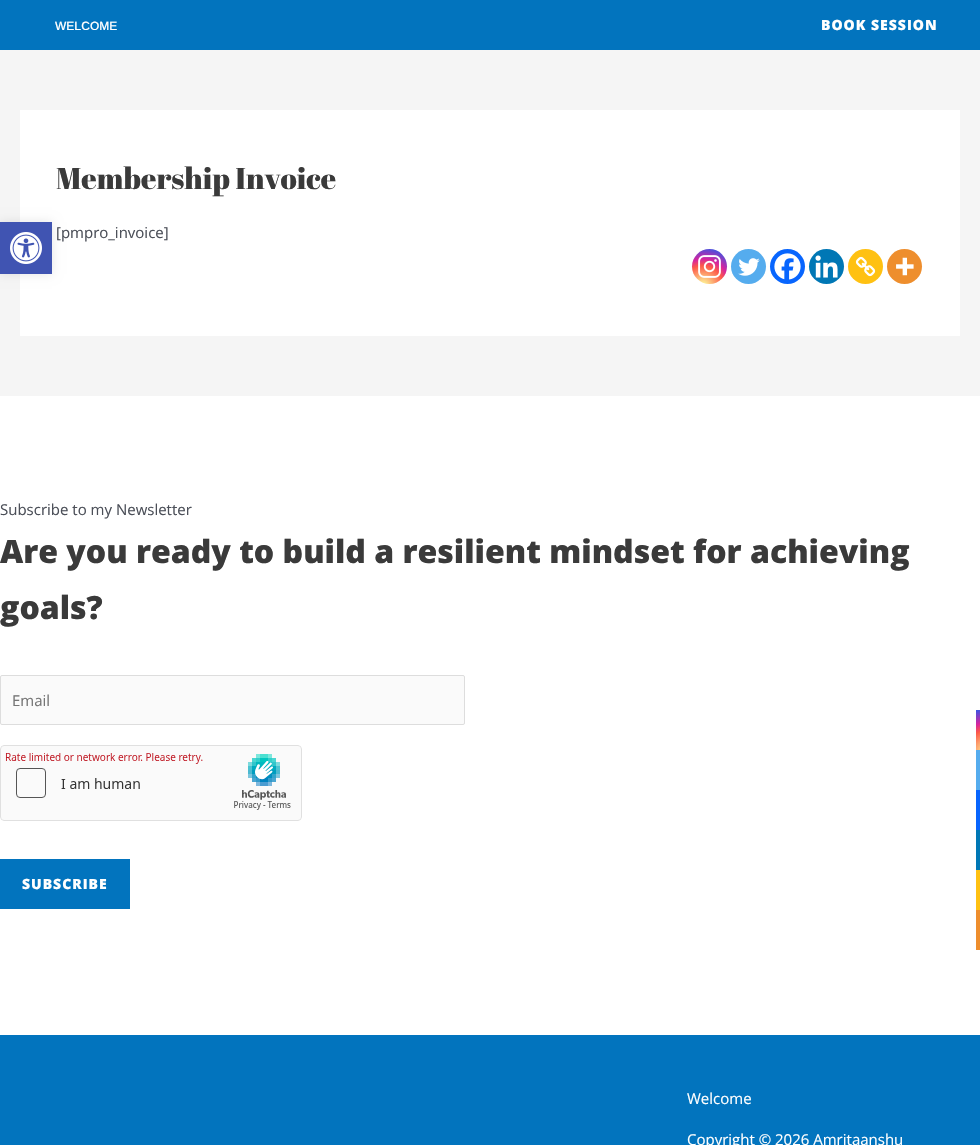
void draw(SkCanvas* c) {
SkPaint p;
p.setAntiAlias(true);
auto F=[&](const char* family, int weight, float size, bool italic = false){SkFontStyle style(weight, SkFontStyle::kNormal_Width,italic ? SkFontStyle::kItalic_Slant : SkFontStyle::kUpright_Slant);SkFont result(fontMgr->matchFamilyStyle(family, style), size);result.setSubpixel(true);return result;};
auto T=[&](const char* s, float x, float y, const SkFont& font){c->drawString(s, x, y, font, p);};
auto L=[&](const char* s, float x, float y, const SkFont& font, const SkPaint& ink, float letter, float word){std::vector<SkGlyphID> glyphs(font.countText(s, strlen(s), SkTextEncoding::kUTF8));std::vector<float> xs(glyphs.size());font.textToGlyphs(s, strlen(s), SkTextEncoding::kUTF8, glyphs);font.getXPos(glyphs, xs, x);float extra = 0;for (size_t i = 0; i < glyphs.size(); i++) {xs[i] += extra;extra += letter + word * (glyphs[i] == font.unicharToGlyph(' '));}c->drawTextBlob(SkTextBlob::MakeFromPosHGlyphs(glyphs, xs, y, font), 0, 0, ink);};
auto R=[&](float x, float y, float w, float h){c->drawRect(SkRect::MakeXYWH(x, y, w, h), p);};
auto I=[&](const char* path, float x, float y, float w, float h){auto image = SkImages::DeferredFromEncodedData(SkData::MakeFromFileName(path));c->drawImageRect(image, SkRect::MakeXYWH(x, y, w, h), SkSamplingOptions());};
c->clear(0xfff5f5f5);
p.setColor(0xff0274be);
R(0,0,980,50);
auto f1 = F("Arimo",500,12);
p.setColor(0xffffffff);
T("WELCOME",55,30,f1);
auto f2 = F("Open Sans",800,14);
L("BOOK SESSION",821,30,f2,p,1,0);
R(20,110,940,226);
auto f3 = F("Abril Fatface",400,30);
p.setColor(0xff3a3a3a);
T("Membership Invoice",56,189,f3);
auto f4 = F("Open Sans",400,15);
p.setColor(0xff4b4f58);
T("[pmpro_invoice]",56,238,f4);
{
const SkColor colors[] = {0xfffdf497,0xfffdf497,0xfffd5949,0xffd6249f,0xff285aeb};
const float stops[] = {0,.05,.45,.6,.9};
p.setShader(SkGradientShader::MakeRadial({703,286}, 45, colors, stops, 5, SkTileMode::kClamp));
p.setAlpha(255);
}
c->drawCircle(709.5,266.5,17.5,p);
I("1.png",698,255,23,23);
p.setShader(nullptr);
p.setColor(0xff55acee);
c->drawCircle(748.5,266.5,17.5,p);
I("2.png",738,258,22,18);
p.setColor(0xff0765fe);
c->drawCircle(787.5,266.5,17.5,p);
I("3.png",774,253,27,27);
p.setColor(0xff0077b5);
c->drawCircle(826.5,266.5,17.5,p);
I("4.png",815,255,23,23);
p.setColor(0xffffc112);
c->drawCircle(865.5,266.5,17.5,p);
I("5.png",855,256,21,21);
p.setColor(0xffee8e2d);
c->drawCircle(904.5,266.5,17.5,p);
I("6.png",896,257,18,19);
p.setColor(0xffffffff);
R(0,396,980,639);
{
const SkColor colors[] = {0xfffdf497,0xfffdf497,0xfffd5949,0xffd6249f,0xff285aeb};
const float stops[] = {0,.05,.45,.6,.9};
p.setShader(SkGradientShader::MakeRadial({988,753}, 51, colors, stops, 5, SkTileMode::kClamp));
p.setAlpha(255);
}
R(976,710,4,40);
p.setShader(nullptr);
p.setColor(0xff55acee);
R(976,750,4,40);
p.setColor(0xff0765fe);
R(976,790,4,40);
p.setColor(0xff0077b5);
R(976,830,4,40);
p.setColor(0xffffc112);
R(976,870,4,40);
p.setColor(0xffee8e2d);
R(976,910,4,40);
p.setColor(0xff4b4f58);
T("Subscribe to my Newsletter",0,515,f4);
auto f5 = F("Open Sans",800,32);
p.setColor(0xff3a3a3a);
T("Are you ready to build a resilient mindset for achieving",0,563,f5);
T("goals?",0,619,f5);
p.setColor(0xfffafafa);
c->drawRoundRect(SkRect::MakeXYWH(.5,675.5,464,49),1.5,1.5,p);
p.setStroke(true);
p.setStrokeWidth(1);
p.setColor(0xffdddddd);
c->drawRoundRect(SkRect::MakeXYWH(.5,675.5,464,49),1.5,1.5,p);
p.setStroke(false);
p.setColor(0xff757575);
T("Email",12,706,f4);
I("7.png",0,745,302,76);
p.setColor(0xff0274be);
R(0,859,130,50);
p.setColor(0xffffffff);
L("SUBSCRIBE",22,889,f2,p,1,0);
p.setColor(0xff0274be);
R(0,1035,980,110);
p.setColor(0xffffffff);
T("Welcome",687,1104,f4);
T("Copyright © 2026 Amritaanshu",687,1145,f4);
p.setColor(0x1a000000);
p.setMaskFilter(SkMaskFilter::MakeBlur(kNormal_SkBlurStyle, 5));
c->drawRect(SkRect::MakeXYWH(0,222,52,52),p);
p.setMaskFilter(nullptr);
p.setColor(0xff4054b2);
R(0,222,52,52);
I("8.png",10,232,32,32);
}
